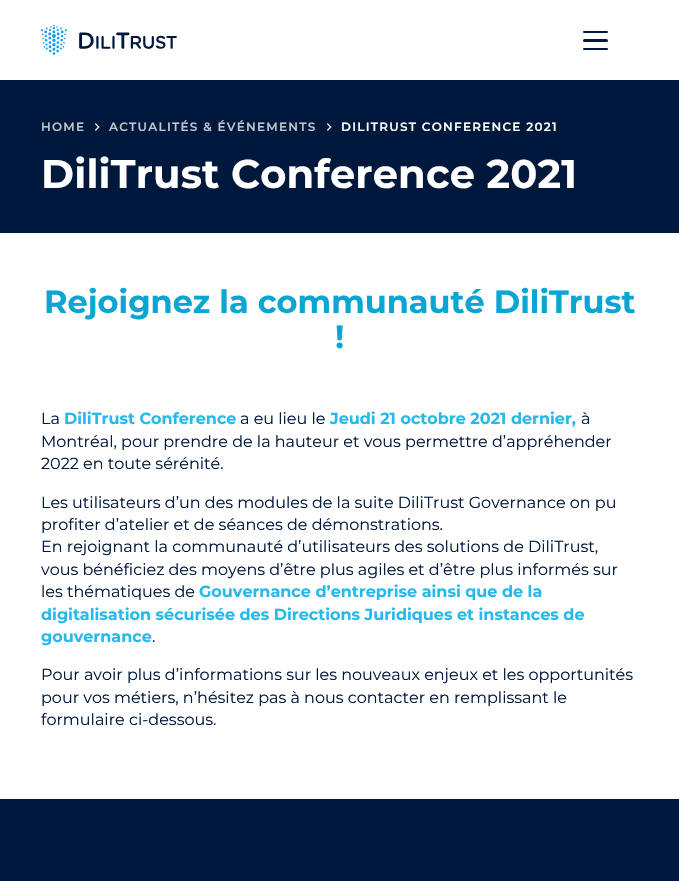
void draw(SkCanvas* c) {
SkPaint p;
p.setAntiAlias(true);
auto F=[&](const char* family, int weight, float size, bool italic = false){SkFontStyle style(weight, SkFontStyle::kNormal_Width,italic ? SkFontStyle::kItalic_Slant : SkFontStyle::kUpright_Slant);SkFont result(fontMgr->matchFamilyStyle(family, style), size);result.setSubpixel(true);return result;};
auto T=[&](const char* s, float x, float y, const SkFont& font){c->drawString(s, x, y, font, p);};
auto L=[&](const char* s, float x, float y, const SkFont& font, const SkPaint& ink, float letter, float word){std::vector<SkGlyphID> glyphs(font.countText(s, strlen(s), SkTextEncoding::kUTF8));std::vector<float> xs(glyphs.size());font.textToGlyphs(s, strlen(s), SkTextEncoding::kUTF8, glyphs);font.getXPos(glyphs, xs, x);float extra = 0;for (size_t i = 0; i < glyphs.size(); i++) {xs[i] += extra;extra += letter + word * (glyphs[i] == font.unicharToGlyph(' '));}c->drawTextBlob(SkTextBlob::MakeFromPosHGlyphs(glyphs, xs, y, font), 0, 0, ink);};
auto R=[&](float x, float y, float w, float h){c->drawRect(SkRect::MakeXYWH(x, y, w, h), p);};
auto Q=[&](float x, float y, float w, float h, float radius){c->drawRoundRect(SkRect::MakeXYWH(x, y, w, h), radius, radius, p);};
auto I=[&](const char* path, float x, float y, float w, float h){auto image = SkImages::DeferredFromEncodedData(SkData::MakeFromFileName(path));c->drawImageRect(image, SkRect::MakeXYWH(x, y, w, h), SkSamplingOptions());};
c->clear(0xffffffff);
I("1.png",41,25,136,30);
p.setColor(0xff00183c);
Q(583,31,25,2,1);
Q(583,39,25,3,1.5);
Q(583,48,25,2,1);
R(0,80,679,153);
auto f1 = F("Montserrat",600,12);
p.setColor(0xffbfc5ce);
L("HOME",41,131,f1,p,1.25,0);
I("2.png",95,123,5,8);
L("ACTUALITÉS & ÉVÉNEMENTS",109,131,f1,p,1.25,0);
I("2.png",327,123,5,8);
p.setColor(0xffffffff);
L("DILITRUST CONFERENCE 2021",341,131,f1,p,1.25,0);
auto f2 = F("Montserrat",700,40);
L("DiliTrust Conference 2021",41,188,f2,p,.15,0);
auto f3 = F("Montserrat",700,32);
p.setColor(0xff0aa5d2);
T("Rejoignez la communauté DiliTrust",44,313,f3);
T("!",335,348,f3);
auto f4 = F("Montserrat",400,16);
p.setColor(0xff00183c);
T("La",41,424,f4);
auto f5 = F("Montserrat",700,16);
p.setColor(0xff26b9ec);
T("DiliTrust Conference",64,424,f5);
p.setColor(0xff00183c);
T("a eu lieu le",240,424,f4);
p.setColor(0xff26b9ec);
T("Jeudi 21 octobre 2021 dernier,",330,424,f5);
p.setColor(0xff00183c);
T("à",581,424,f4);
T("Montréal, pour prendre de la hauteur et vous permettre d’appréhender",41,447,f4);
T("2022 en toute sérénité.",41,469,f4);
T("Les utilisateurs d’un des modules de la suite DiliTrust Governance on pu",41,508,f4);
T("profiter d’atelier et de séances de démonstrations.",41,530,f4);
T("En rejoignant la communauté d’utilisateurs des solutions de DiliTrust,",41,552,f4);
T("vous bénéficiez des moyens d’être plus agiles et d’être plus informés sur",41,575,f4);
T("les thématiques de",41,597,f4);
p.setColor(0xff26b9ec);
T("Gouvernance d’entreprise ainsi que de la",199,597,f5);
T("digitalisation sécurisée des Directions Juridiques et instances de",41,620,f5);
T("gouvernance",41,642,f5);
p.setColor(0xff00183c);
T(".",152,642,f4);
T("Pour avoir plus d’informations sur les nouveaux enjeux et les opportunités",41,680,f4);
T("pour vos métiers, n’hésitez pas à nous contacter en remplissant le",41,703,f4);
T("formulaire ci-dessous.",41,725,f4);
R(0,799,679,82);
}
